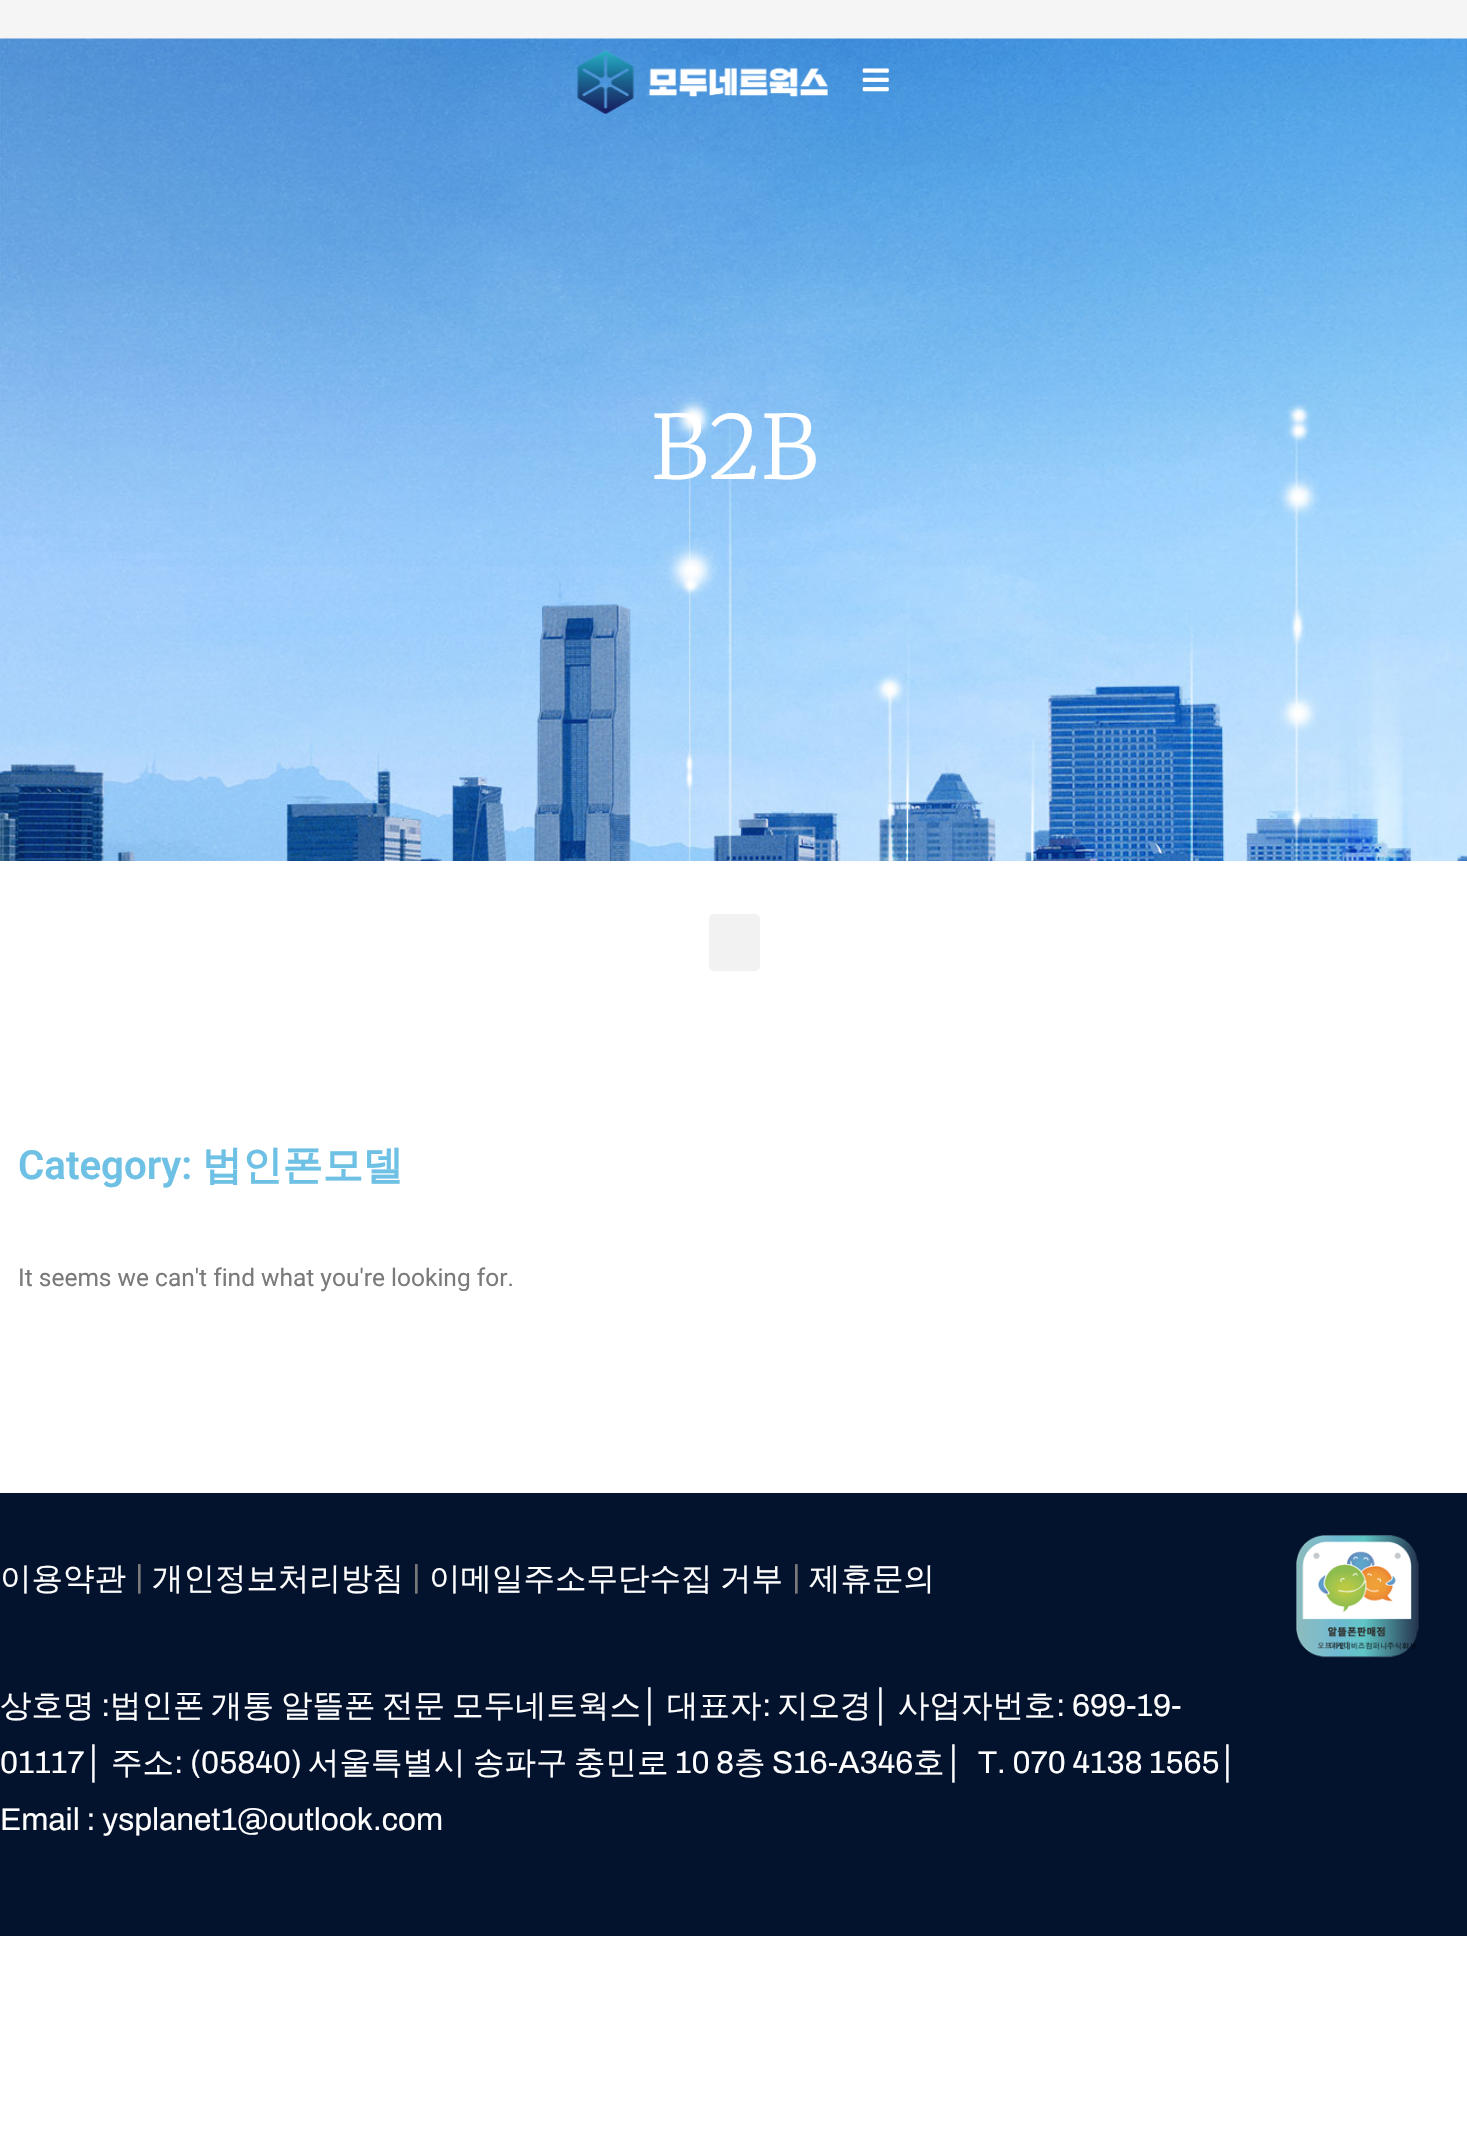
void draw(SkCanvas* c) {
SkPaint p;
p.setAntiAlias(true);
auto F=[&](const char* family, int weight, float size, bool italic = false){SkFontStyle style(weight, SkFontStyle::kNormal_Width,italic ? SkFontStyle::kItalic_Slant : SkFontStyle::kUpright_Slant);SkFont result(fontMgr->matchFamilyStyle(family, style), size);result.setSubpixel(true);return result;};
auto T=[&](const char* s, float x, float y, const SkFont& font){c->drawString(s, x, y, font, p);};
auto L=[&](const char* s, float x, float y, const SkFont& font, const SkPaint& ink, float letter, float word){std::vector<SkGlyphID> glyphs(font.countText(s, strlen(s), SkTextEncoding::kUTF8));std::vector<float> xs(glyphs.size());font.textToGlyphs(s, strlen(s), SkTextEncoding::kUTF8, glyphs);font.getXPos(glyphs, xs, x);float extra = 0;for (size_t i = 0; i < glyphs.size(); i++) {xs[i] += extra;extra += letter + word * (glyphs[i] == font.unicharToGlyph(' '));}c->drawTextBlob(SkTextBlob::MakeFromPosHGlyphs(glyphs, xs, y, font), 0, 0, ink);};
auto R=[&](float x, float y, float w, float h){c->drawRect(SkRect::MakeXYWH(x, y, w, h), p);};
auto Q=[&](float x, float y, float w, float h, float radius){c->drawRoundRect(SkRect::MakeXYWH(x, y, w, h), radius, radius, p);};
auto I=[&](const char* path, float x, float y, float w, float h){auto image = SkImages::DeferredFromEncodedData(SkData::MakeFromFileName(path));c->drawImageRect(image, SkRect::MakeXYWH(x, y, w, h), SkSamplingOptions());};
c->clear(0xffffffff);
p.setColor(0xfff5f5f5);
R(0,0,1467,39);
I("3.png",0,38,1467,823);
I("1.png",577,50,251,64);
I("2.png",862,68,27,24);
auto f1 = F("Merriweather",300,88);
p.setColor(0xffffffff);
T("B2B",651,479,f1);
p.setColor(0xfff2f2f2);
Q(709,914,51,57,5);
auto f2 = F("Roboto",600,40.25);
p.setColor(0xff6ec1e4);
T("Category:",18,1179,f2);
auto f3 = F("WenQuanYi Zen Hei",700,40.25);
T("법인폰모델",202,1179,f3);
auto f4 = F("Roboto",400,24.5);
p.setColor(0xff7a7a7a);
T("It seems we can't find what you're looking for.",18,1286,f4);
p.setColor(0xff03122d);
R(0,1493,1467,443);
auto f5 = F("WenQuanYi Zen Hei",500,31.5);
p.setColor(0xffffffff);
T("이용약관",0,1589,f5);
auto f6 = F("Roboto",400,35);
p.setColor(0xff7a7a7a);
T("|",135,1589,f6);
p.setColor(0xffffffff);
T("개인정보처리방침",152,1589,f5);
p.setColor(0xff7a7a7a);
T("|",412,1589,f6);
p.setColor(0xffffffff);
L("이메일주소무단수집 거부",429,1589,f5,p,0,-2);
p.setColor(0xff7a7a7a);
T("|",792,1589,f6);
p.setColor(0xffffffff);
T("제휴문의",809,1589,f5);
T("상호명",0,1716,f5);
auto f7 = F("Archivo",400,31.5);
T(":",101,1716,f7);
T("법인폰",110,1716,f5);
T("개통",211,1716,f5);
T("알뜰폰",281,1716,f5);
T("전문",382,1716,f5);
T("모두네트웍스",452,1716,f5);
auto f8 = F("Liberation Sans",400,31.5);
T("│",641,1716,f8);
T("대표자",667,1716,f5);
T(":",762,1716,f7);
T("지오경",777,1716,f5);
T("│",872,1716,f8);
T("사업자번호",898,1716,f5);
T(": 699-19-",1056,1716,f7);
T("01117",0,1773,f7);
T("│",85,1773,f8);
T("주소",111,1773,f5);
T(": (05840)",174,1773,f7);
T("서울특별시",308,1773,f5);
T("송파구",473,1773,f5);
T("충민로",574,1773,f5);
T("10 8",675,1773,f7);
T("층",734,1773,f5);
T("S16-A346",772,1773,f7);
T("호",913,1773,f5);
T("│",945,1773,f8);
T("T. 070 4138 1565",978,1773,f7);
T("│",1219,1773,f8);
T("Email : ysplanet1@outlook.com",0,1830,f7);
I("4.png",1296,1535,123,123);
}
